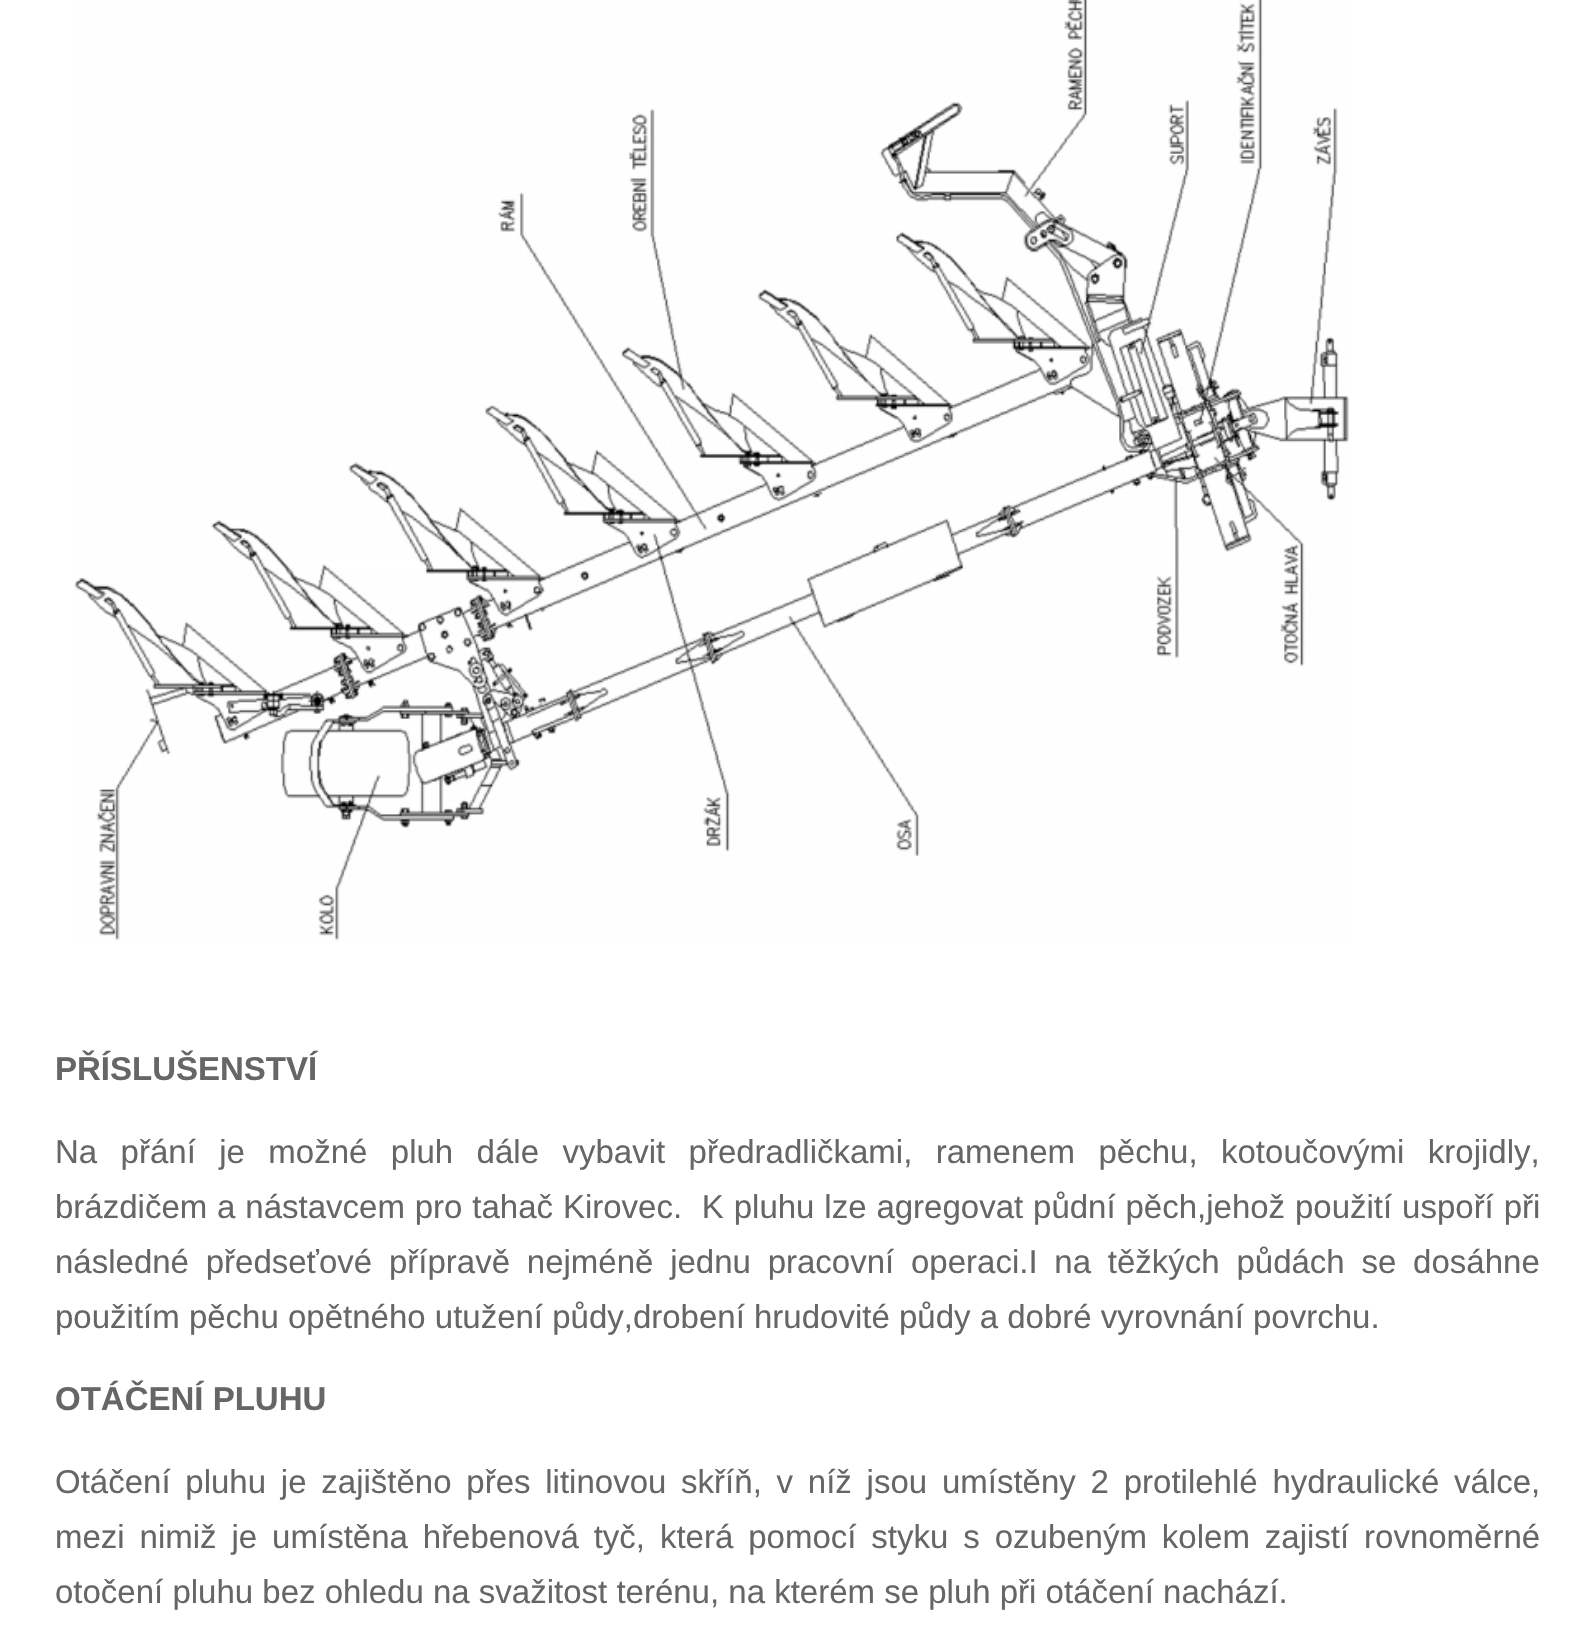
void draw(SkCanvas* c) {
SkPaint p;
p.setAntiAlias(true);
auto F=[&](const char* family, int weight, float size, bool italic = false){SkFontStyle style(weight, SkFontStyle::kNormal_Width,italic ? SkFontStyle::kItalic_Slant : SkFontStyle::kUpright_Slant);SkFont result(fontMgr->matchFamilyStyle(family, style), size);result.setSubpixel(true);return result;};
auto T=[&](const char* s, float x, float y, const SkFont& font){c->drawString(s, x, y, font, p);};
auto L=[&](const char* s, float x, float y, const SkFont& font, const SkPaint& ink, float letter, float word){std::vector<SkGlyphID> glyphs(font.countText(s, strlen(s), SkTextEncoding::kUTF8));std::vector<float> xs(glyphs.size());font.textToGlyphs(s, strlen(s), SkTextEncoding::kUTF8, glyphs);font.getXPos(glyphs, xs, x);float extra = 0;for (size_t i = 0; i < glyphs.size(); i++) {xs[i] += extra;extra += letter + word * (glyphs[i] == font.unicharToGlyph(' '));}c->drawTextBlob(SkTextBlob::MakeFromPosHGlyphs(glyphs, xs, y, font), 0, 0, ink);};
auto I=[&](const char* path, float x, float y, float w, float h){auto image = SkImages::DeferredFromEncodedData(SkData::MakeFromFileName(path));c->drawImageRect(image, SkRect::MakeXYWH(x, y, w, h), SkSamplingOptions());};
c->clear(0xffffffff);
I("1.png",74,0,1275,941);
auto f1 = F("Liberation Sans",700,33);
p.setColor(0xff666666);
T("PŘÍSLUŠENSTVÍ",55,1080,f1);
auto f2 = F("Liberation Sans",400,33);
L("Na přání je možné pluh dále vybavit předradličkami, ramenem pěchu, kotoučovými krojidly,",55,1163,f2,p,0,14.25);
L("brázdičem a nástavcem pro tahač Kirovec.  K pluhu lze agregovat půdní pěch,jehož použití uspoří při",55,1218,f2,p,0,.7);
L("následné předseťové přípravě nejméně jednu pracovní operaci.I na těžkých půdách se dosáhne",55,1273,f2,p,0,7.6);
T("použitím pěchu opětného utužení půdy,drobení hrudovité půdy a dobré vyrovnání povrchu.",55,1328,f2);
T("OTÁČENÍ PLUHU",55,1410,f1);
L("Otáčení pluhu je zajištěno přes litinovou skříň, v níž jsou umístěny 2 protilehlé hydraulické válce,",55,1493,f2,p,0,5.6);
L("mezi nimiž je umístěna hřebenová tyč, která pomocí styku s ozubeným kolem zajistí rovnoměrné",55,1548,f2,p,0,5.75);
T("otočení pluhu bez ohledu na svažitost terénu, na kterém se pluh při otáčení nachází.",55,1603,f2);
}
